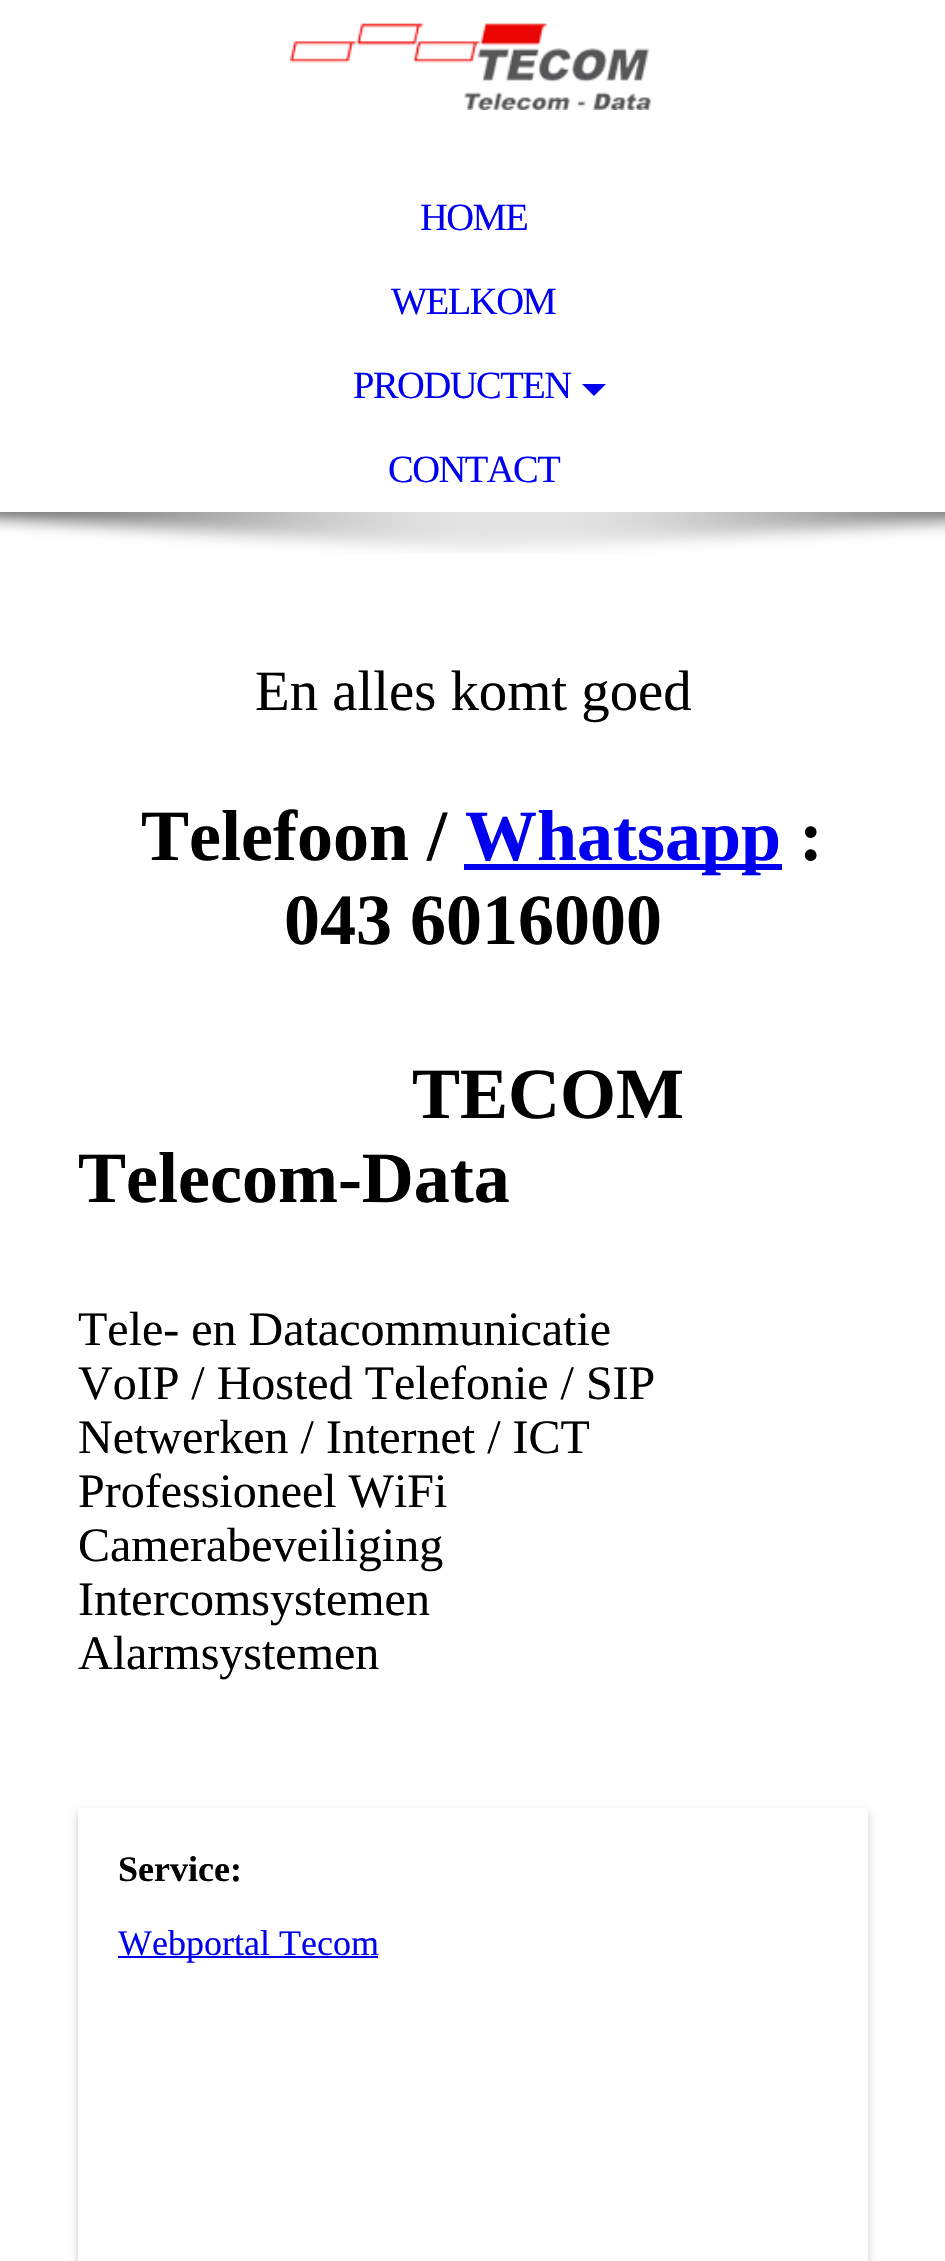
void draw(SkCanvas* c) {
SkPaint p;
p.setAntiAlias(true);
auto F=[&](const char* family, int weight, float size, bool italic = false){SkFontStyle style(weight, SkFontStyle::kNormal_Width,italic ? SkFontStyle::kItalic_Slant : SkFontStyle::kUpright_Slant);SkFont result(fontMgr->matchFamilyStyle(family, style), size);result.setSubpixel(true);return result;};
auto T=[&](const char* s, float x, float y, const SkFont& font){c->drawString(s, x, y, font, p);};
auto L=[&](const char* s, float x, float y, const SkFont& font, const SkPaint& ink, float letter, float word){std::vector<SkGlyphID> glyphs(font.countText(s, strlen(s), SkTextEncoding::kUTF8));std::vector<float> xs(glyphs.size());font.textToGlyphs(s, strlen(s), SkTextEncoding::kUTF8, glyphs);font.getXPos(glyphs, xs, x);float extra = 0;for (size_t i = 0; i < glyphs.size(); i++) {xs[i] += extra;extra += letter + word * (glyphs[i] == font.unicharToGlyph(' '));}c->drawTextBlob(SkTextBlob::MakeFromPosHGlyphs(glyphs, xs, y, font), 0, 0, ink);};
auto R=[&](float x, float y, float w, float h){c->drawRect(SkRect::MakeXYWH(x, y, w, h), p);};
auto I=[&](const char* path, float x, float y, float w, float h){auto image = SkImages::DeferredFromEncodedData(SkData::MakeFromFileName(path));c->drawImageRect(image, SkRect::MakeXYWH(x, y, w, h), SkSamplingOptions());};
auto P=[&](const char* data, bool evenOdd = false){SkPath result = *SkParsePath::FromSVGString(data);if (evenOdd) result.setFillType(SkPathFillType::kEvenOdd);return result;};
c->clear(0xffffffff);
I("1.png",290,23,361,87);
auto f1 = F("Liberation Serif",400,38.5);
p.setColor(0xff0000ee);
L("HOME",420,230,f1,p,-1.5,0);
L("WELKOM",391,314,f1,p,-1.5,0);
L("PRODUCTEN",353,398,f1,p,-1.5,0);
c->drawPath(P("M582 384h24l-12 12z"),p);
L("CONTACT",388,482,f1,p,-1.5,0);
I("2.png",0,512,945,42);
auto f2 = F("Liberation Serif",400,56.75);
p.setColor(0xff000000);
T("En alles komt goed",255,710,f2);
auto f3 = F("Liberation Serif",700,72);
T("Telefoon /",141,860,f3);
p.setColor(0xff0000ee);
R(464,864,318,6);
T("Whatsapp",465,860,f3);
p.setColor(0xff000000);
T(":",799,860,f3);
T("043 6016000",284,944,f3);
T("TECOM",412,1118,f3);
T("Telecom-Data",78,1202,f3);
auto f4 = F("Liberation Serif",400,48);
T("Tele- en Datacommunicatie",78,1345,f4);
T("VoIP / Hosted Telefonie / SIP",78,1399,f4);
T("Netwerken / Internet / ICT",78,1453,f4);
T("Professioneel WiFi",78,1507,f4);
T("Camerabeveiliging",78,1561,f4);
T("Intercomsystemen",78,1615,f4);
T("Alarmsystemen",78,1669,f4);
c->save();
c->clipPath(P("M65 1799h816v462h-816zm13 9h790v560h-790z",true),true);
p.setColor(0xffcccccc);
p.setMaskFilter(SkMaskFilter::MakeBlur(kNormal_SkBlurStyle, 4));
c->drawRect(SkRect::MakeXYWH(78,1812,790,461),p);
p.setMaskFilter(nullptr);
c->restore();
auto f5 = F("Liberation Serif",700,36);
p.setColor(0xff000000);
T("Service:",118,1881,f5);
p.setColor(0xff0000ee);
R(118,1956,260,2);
auto f6 = F("Liberation Serif",400,36);
T("Webportal Tecom",118,1955,f6);
}
